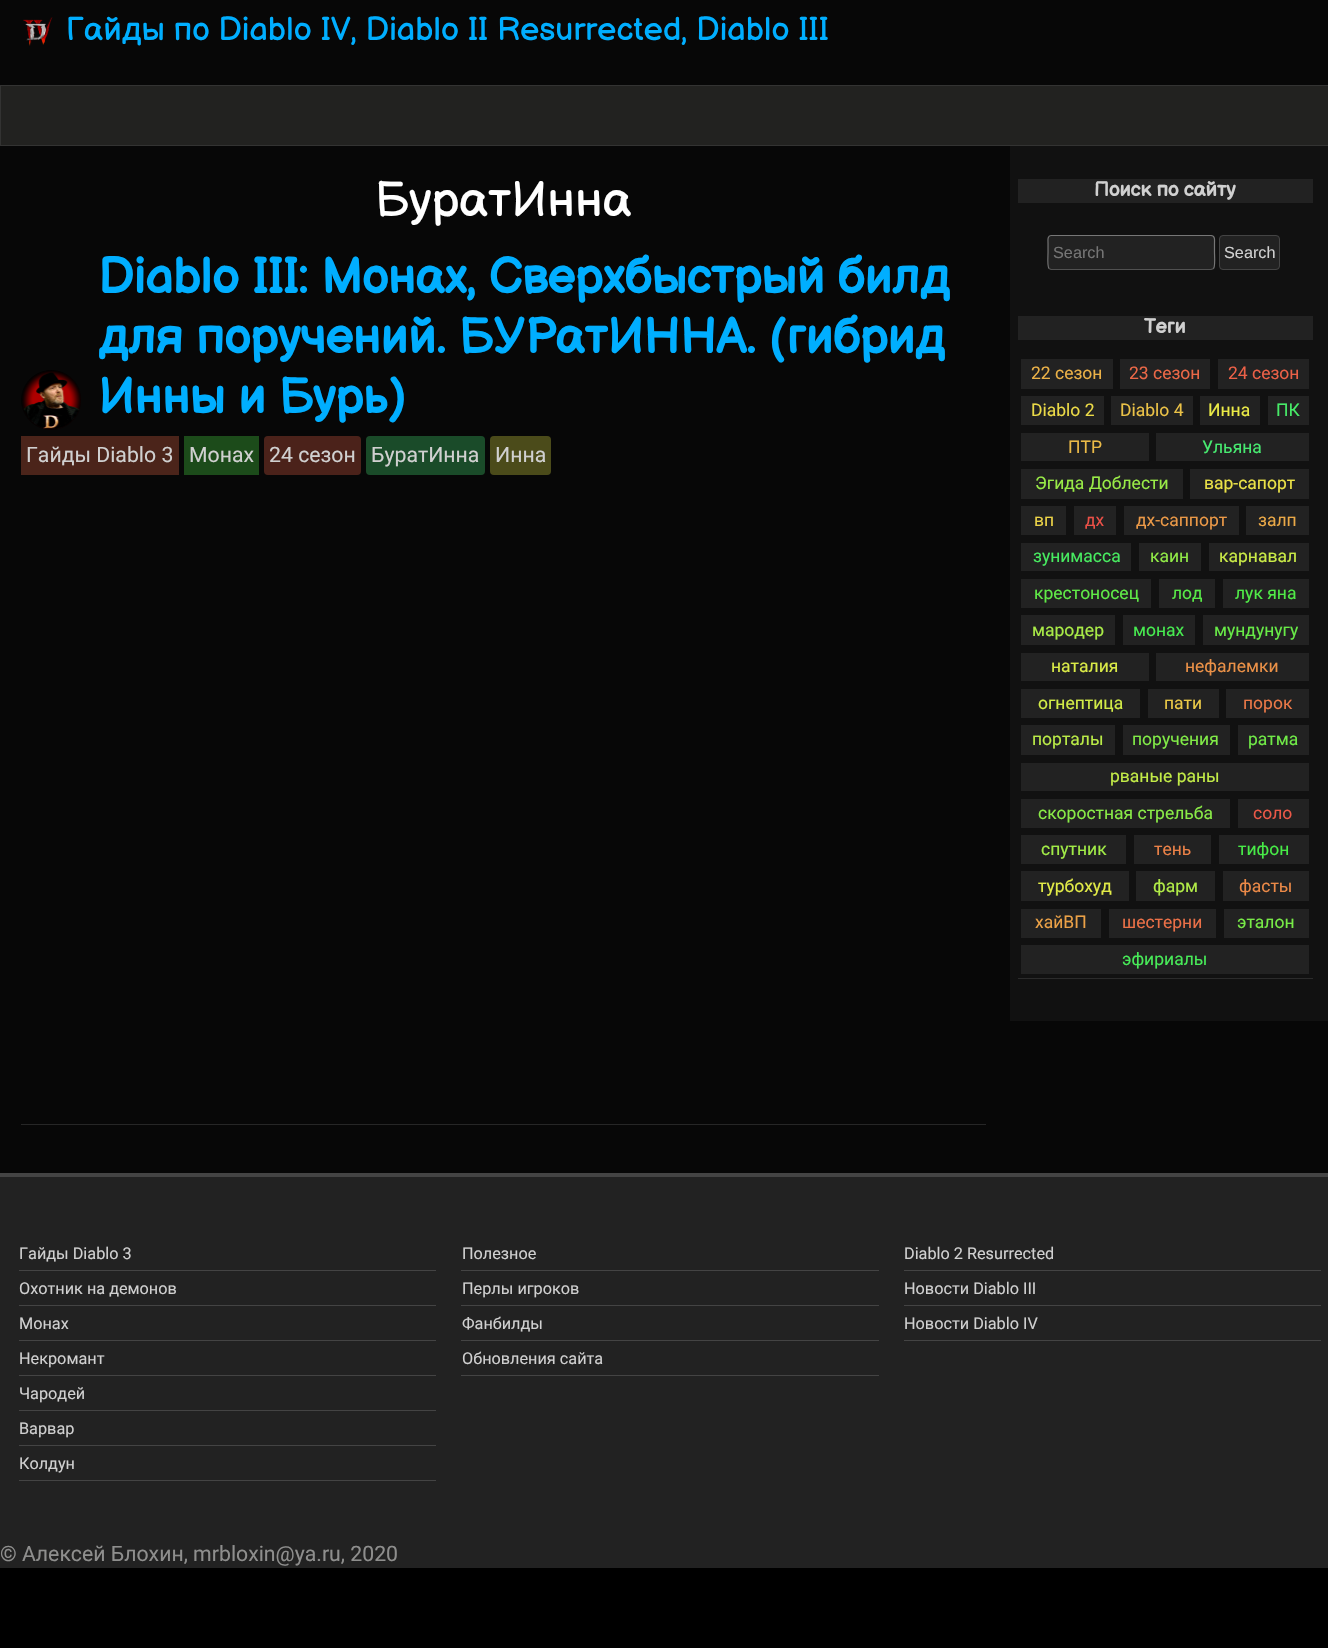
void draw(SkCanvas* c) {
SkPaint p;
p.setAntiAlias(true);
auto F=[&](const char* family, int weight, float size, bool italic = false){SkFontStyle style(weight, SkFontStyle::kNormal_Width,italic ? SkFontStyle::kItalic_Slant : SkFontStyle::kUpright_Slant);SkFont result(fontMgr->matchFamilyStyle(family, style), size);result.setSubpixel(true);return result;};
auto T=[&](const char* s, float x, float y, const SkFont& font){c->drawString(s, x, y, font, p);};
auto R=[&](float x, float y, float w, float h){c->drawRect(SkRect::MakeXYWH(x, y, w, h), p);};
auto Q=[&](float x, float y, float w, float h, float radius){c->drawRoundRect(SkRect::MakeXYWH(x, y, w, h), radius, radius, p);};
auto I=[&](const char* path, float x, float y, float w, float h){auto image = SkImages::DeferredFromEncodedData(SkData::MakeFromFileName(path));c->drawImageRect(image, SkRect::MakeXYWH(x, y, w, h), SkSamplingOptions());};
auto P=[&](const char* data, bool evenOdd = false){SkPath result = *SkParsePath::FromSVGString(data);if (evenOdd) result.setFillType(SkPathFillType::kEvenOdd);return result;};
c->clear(0xff000000);
p.setColor(0xff070707);
R(0,0,1328,1173);
I("1.png",23,17,30,29);
auto f1 = F("Balsamiq Sans",400,32.5);
p.setColor(0xff00aeff);
T("Гайды по Diablo IV, Diablo II Resurrected, Diablo III",66,40,f1);
p.setColor(0xff222220);
c->drawRect(SkRect::MakeXYWH(.5,85.5,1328,60),p);
p.setStroke(true);
p.setStrokeWidth(1);
p.setColor(0xff333332);
c->drawRect(SkRect::MakeXYWH(.5,85.5,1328,60),p);
p.setStroke(false);
p.setColor(0xff262626);
R(21,1124,965,1);
auto f2 = F("Balsamiq Sans",400,49);
p.setColor(0xffffffff);
T("БуратИнна",375,216,f2);
I("2.png",21,370,60,60);
auto f3 = F("Balsamiq Sans",700,49);
p.setColor(0xff00aeff);
T("Diablo III: Монах, Сверхбыстрый билд",98,293,f3);
T("для поручений. БУРатИННА. (гибрид",98,353,f3);
T("Инны и Бурь)",98,413,f3);
p.setColor(0xff4b241a);
R(21,436,158,39);
auto f4 = F("Roboto",400,21.25);
p.setColor(0xffd0d0d0);
T("Гайды Diablo 3",26,462,f4);
p.setColor(0xff1c4b1a);
R(184,436,75,39);
p.setColor(0xffd0d0d0);
T("Монах",189,462,f4);
p.setColor(0xff4b221a);
Q(264,436,97,39,4);
p.setColor(0xffd0d0d0);
T("24 сезон",269,462,f4);
p.setColor(0xff1a4b29);
Q(366,436,119,39,4);
p.setColor(0xffd0d0d0);
T("БуратИнна",371,462,f4);
p.setColor(0xff4b4b1a);
Q(490,436,61,39,4);
p.setColor(0xffd0d0d0);
T("Инна",495,462,f4);
p.setColor(0xff111111);
R(1010,146,318,875);
p.setColor(0xff222222);
R(1018,179,295,24);
auto f5 = F("Balsamiq Sans",700,20);
p.setColor(0xffd0d0d0);
T("Поиск по сайту",1094,196,f5);
p.setColor(0xff222222);
Q(1048,235,167,35,4);
p.setStroke(true);
p.setStrokeWidth(1.2);
p.setColor(0x807f7f7f);
c->drawPath(P("M1213.5 268.5l-2.5 1h-160l-2-1"),p);
p.setColor(0x80cbcbcb);
c->drawPath(P("M1049 268.5c-2-2-1-13-1-16v-9c0-2.5-1-8 3-8h160c4.5 0 3.5 5.5 3.5 8v9c0 3 1 14-1 16"),p);
auto f6 = F("Liberation Sans",400,16.25);
p.setStroke(false);
p.setColor(0xff757575);
T("Search",1053,258,f6);
p.setColor(0xff222222);
c->drawRoundRect(SkRect::MakeXYWH(1219.5,235.5,60,34),3.5,3.5,p);
p.setStroke(true);
p.setStrokeWidth(1);
p.setColor(0xff444444);
c->drawRoundRect(SkRect::MakeXYWH(1219.5,235.5,60,34),3.5,3.5,p);
p.setStroke(false);
p.setColor(0xffd0d0d0);
T("Search",1224,258,f6);
p.setColor(0xff2b2b2b);
R(1018,978,295,1);
p.setColor(0xff222222);
R(1018,316,295,24);
p.setColor(0xffd0d0d0);
T("Теги",1144,333,f5);
p.setColor(0xff222222);
R(1021,359,92,30);
auto f7 = F("Roboto",400,17.5);
p.setColor(0xffebb147);
T("22 сезон",1031,379,f7);
p.setColor(0xff222222);
R(1120,359,90,30);
p.setColor(0xffeb6847);
T("23 сезон",1129,379,f7);
p.setColor(0xff222222);
R(1218,359,91,30);
p.setColor(0xffeb6047);
T("24 сезон",1228,379,f7);
p.setColor(0xff222222);
R(1021,396,83,29);
p.setColor(0xffebda47);
T("Diablo 2",1031,416,f7);
p.setColor(0xff222222);
R(1111,396,82,29);
p.setColor(0xffebc247);
T("Diablo 4",1120,416,f7);
p.setColor(0xff222222);
R(1200,396,60,29);
p.setColor(0xffebeb47);
T("Инна",1208,416,f7);
p.setColor(0xff222222);
R(1268,396,41,29);
p.setColor(0xff47eb68);
T("ПК",1276,416,f7);
p.setColor(0xff222222);
R(1021,433,128,28);
p.setColor(0xffebba47);
T("ПТР",1068,453,f7);
p.setColor(0xff222222);
R(1156,433,153,28);
p.setColor(0xff47eb70);
T("Ульяна",1202,453,f7);
p.setColor(0xff222222);
R(1021,469,162,30);
p.setColor(0xff99eb47);
T("Эгида Доблести",1035,489,f7);
p.setColor(0xff222222);
R(1190,469,119,30);
p.setColor(0xffebe247);
T("вар-сапорт",1204,489,f7);
p.setColor(0xff222222);
R(1021,506,45,29);
p.setColor(0xffebd247);
T("вп",1034,526,f7);
p.setColor(0xff222222);
R(1074,506,42,29);
p.setColor(0xffeb5047);
T("дх",1085,526,f7);
p.setColor(0xff222222);
R(1124,506,115,29);
p.setColor(0xffeb9947);
T("дх-саппорт",1136,526,f7);
p.setColor(0xff222222);
R(1246,506,63,29);
p.setColor(0xffeba947);
T("залп",1258,526,f7);
p.setColor(0xff222222);
R(1021,543,110,28);
p.setColor(0xff47eb60);
T("зунимасса",1033,562,f7);
p.setColor(0xff222222);
R(1139,543,62,28);
p.setColor(0xff91eb47);
T("каин",1150,562,f7);
p.setColor(0xff222222);
R(1209,543,100,28);
p.setColor(0xffcaeb47);
T("карнавал",1219,562,f7);
p.setColor(0xff222222);
R(1021,579,130,29);
p.setColor(0xff60eb47);
T("крестоносец",1034,599,f7);
p.setColor(0xff222222);
R(1159,579,56,29);
p.setColor(0xff58eb47);
T("лод",1172,599,f7);
p.setColor(0xff222222);
R(1223,579,86,29);
p.setColor(0xff50eb47);
T("лук яна",1235,599,f7);
p.setColor(0xff222222);
R(1021,615,94,30);
p.setColor(0xffa9eb47);
T("мародер",1032,636,f7);
p.setColor(0xff222222);
R(1123,615,72,30);
p.setColor(0xff47eb50);
T("монах",1133,636,f7);
p.setColor(0xff222222);
R(1203,615,106,30);
p.setColor(0xff68eb47);
T("мундунугу",1214,636,f7);
p.setColor(0xff222222);
R(1021,653,128,28);
p.setColor(0xffdaeb47);
T("наталия",1051,672,f7);
p.setColor(0xff222222);
R(1156,653,153,28);
p.setColor(0xffeb9147);
T("нефалемки",1185,672,f7);
p.setColor(0xff222222);
R(1021,689,119,29);
p.setColor(0xffd2eb47);
T("огнептица",1038,709,f7);
p.setColor(0xff222222);
R(1148,689,71,29);
p.setColor(0xffebca47);
T("пати",1164,709,f7);
p.setColor(0xff222222);
R(1226,689,83,29);
p.setColor(0xffeb7847);
T("порок",1243,709,f7);
p.setColor(0xff222222);
R(1021,725,94,30);
p.setColor(0xffbaeb47);
T("порталы",1032,745,f7);
p.setColor(0xff222222);
R(1123,725,107,30);
p.setColor(0xff81eb47);
T("поручения",1132,745,f7);
p.setColor(0xff222222);
R(1238,725,71,30);
p.setColor(0xff70eb47);
T("ратма",1248,745,f7);
p.setColor(0xff222222);
R(1021,763,288,28);
p.setColor(0xffc2eb47);
T("рваные раны",1110,782,f7);
p.setColor(0xff222222);
R(1021,799,209,29);
p.setColor(0xff89eb47);
T("скоростная стрельба",1038,819,f7);
p.setColor(0xff222222);
R(1238,799,71,29);
p.setColor(0xffeb5847);
T("соло",1253,819,f7);
p.setColor(0xff222222);
R(1021,835,105,29);
p.setColor(0xffa1eb47);
T("спутник",1041,855,f7);
p.setColor(0xff222222);
R(1134,835,77,29);
p.setColor(0xffeb8147);
T("тень",1154,855,f7);
p.setColor(0xff222222);
R(1219,835,90,29);
p.setColor(0xff47eb47);
T("тифон",1238,855,f7);
p.setColor(0xff222222);
R(1021,871,108,30);
p.setColor(0xffe2eb47);
T("турбохуд",1038,892,f7);
p.setColor(0xff222222);
R(1136,871,79,30);
p.setColor(0xffb1eb47);
T("фарм",1153,892,f7);
p.setColor(0xff222222);
R(1223,871,86,30);
p.setColor(0xffeb8947);
T("фасты",1239,892,f7);
p.setColor(0xff222222);
R(1021,909,80,29);
p.setColor(0xffeba147);
T("хайВП",1035,928,f7);
p.setColor(0xff222222);
R(1109,909,107,29);
p.setColor(0xffeb7047);
T("шестерни",1122,928,f7);
p.setColor(0xff222222);
R(1224,909,85,29);
p.setColor(0xff78eb47);
T("эталон",1237,928,f7);
p.setColor(0xff222222);
R(1021,945,288,29);
p.setColor(0xff47eb58);
T("эфириалы",1122,965,f7);
p.setColor(0xff222222);
R(0,1177,1328,391);
p.setColor(0xff444444);
R(0,1173,1328,4);
R(19,1270,417,1);
auto f8 = F("Roboto",400,16.25);
p.setColor(0xffd0d0d0);
T("Гайды Diablo 3",19,1259,f8);
p.setColor(0xff444444);
R(19,1305,417,1);
p.setColor(0xffd0d0d0);
T("Охотник на демонов",19,1294,f8);
p.setColor(0xff444444);
R(19,1340,417,1);
p.setColor(0xffd0d0d0);
T("Монах",19,1329,f8);
p.setColor(0xff444444);
R(19,1375,417,1);
p.setColor(0xffd0d0d0);
T("Некромант",19,1364,f8);
p.setColor(0xff444444);
R(19,1410,417,1);
p.setColor(0xffd0d0d0);
T("Чародей",19,1399,f8);
p.setColor(0xff444444);
R(19,1445,417,1);
p.setColor(0xffd0d0d0);
T("Варвар",19,1434,f8);
p.setColor(0xff444444);
R(19,1480,417,1);
p.setColor(0xffd0d0d0);
T("Колдун",19,1469,f8);
p.setColor(0xff444444);
R(461,1270,418,1);
p.setColor(0xffd0d0d0);
T("Полезное",462,1259,f8);
p.setColor(0xff444444);
R(461,1305,418,1);
p.setColor(0xffd0d0d0);
T("Перлы игроков",462,1294,f8);
p.setColor(0xff444444);
R(461,1340,418,1);
p.setColor(0xffd0d0d0);
T("Фанбилды",462,1329,f8);
p.setColor(0xff444444);
R(461,1375,418,1);
p.setColor(0xffd0d0d0);
T("Обновления сайта",462,1364,f8);
p.setColor(0xff444444);
R(904,1270,417,1);
p.setColor(0xffd0d0d0);
T("Diablo 2 Resurrected",904,1259,f8);
p.setColor(0xff444444);
R(904,1305,417,1);
p.setColor(0xffd0d0d0);
T("Новости Diablo III",904,1294,f8);
p.setColor(0xff444444);
R(904,1340,417,1);
p.setColor(0xffd0d0d0);
T("Новости Diablo IV",904,1329,f8);
p.setColor(0xff8e8e8d);
T("© Алексей Блохин, mrbloxin@ya.ru, 2020",0,1561,f4);
}
